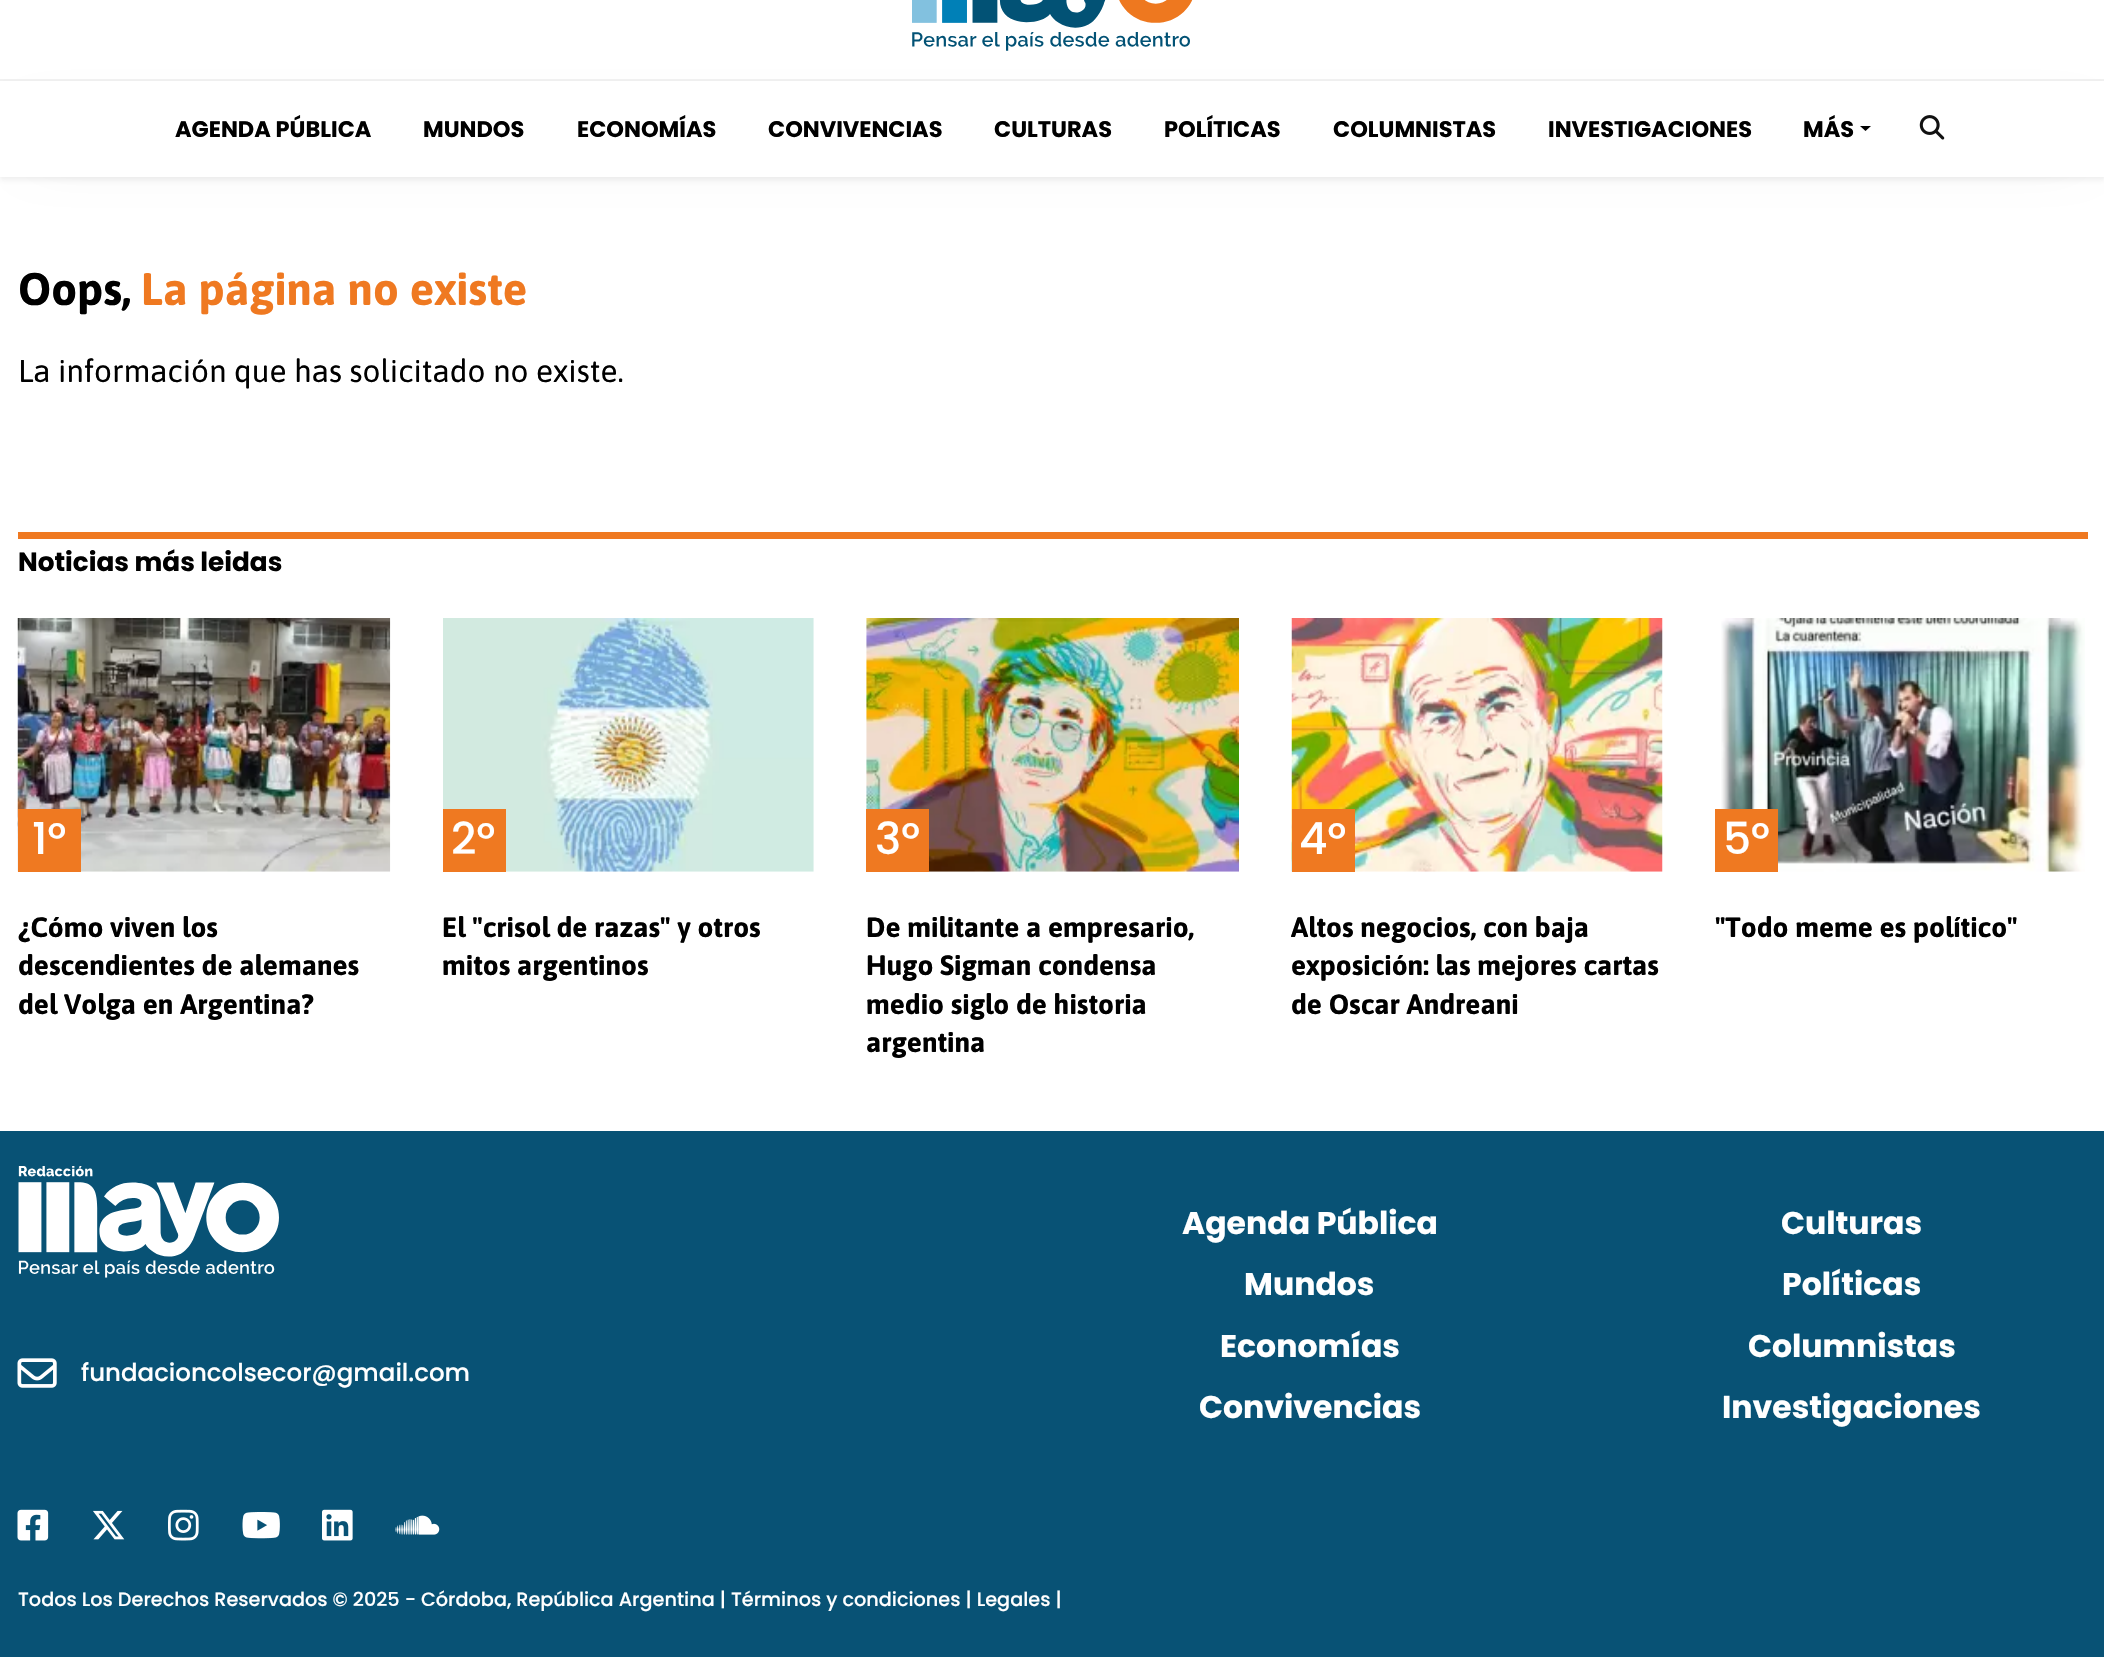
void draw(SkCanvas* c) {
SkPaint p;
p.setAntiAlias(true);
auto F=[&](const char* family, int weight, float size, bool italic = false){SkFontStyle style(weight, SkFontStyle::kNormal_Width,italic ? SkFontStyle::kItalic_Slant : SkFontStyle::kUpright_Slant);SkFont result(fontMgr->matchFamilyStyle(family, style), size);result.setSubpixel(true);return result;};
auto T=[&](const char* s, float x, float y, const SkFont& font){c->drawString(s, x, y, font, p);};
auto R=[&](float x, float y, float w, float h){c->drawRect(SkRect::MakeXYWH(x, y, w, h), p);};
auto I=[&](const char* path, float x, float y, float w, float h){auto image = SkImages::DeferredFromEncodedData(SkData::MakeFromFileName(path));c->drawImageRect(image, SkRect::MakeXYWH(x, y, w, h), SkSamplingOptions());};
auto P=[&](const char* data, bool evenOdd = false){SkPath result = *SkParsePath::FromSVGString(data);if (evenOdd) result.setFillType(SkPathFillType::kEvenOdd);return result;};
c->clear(0xffffffff);
I("1.png",912,0,281,51);
p.setColor(0xffdadada);
p.setMaskFilter(SkMaskFilter::MakeBlur(kNormal_SkBlurStyle, 24.5));
c->drawRect(SkRect::MakeXYWH(42,128,2028,21),p);
p.setMaskFilter(nullptr);
p.setColor(0xfff1f1f1);
R(0,79,2104,2);
p.setColor(0x1a646464);
p.setMaskFilter(SkMaskFilter::MakeBlur(kNormal_SkBlurStyle, 2.5));
c->drawRect(SkRect::MakeXYWH(0,84,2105,96),p);
p.setMaskFilter(nullptr);
p.setColor(0xffffffff);
R(0,81,2104,96);
auto f1 = F("Poppins",700,22.5);
p.setColor(0xff000000);
T("AGENDA PÚBLICA",175,137,f1);
T("MUNDOS",423,137,f1);
T("ECONOMÍAS",577,137,f1);
T("CONVIVENCIAS",768,137,f1);
T("CULTURAS",994,137,f1);
T("POLÍTICAS",1164,137,f1);
T("COLUMNISTAS",1333,137,f1);
T("INVESTIGACIONES",1548,137,f1);
T("MÁS",1803,137,f1);
c->drawPath(P("M1860 126h11l-5.5 5z"),p);
I("2.png",1919,115,26,25);
auto f2 = F("Asap",700,45.5);
T("Oops,",18,305,f2);
p.setColor(0xffef7921);
T("La página no existe",141,305,f2);
auto f3 = F("Asap",400,31.5);
p.setColor(0xff000000);
T("La información que has solicitado no existe.",18,382,f3);
p.setColor(0xffef7921);
R(18,532,2070,7);
auto f4 = F("Poppins",700,26.25);
p.setColor(0xff000000);
T("Noticias más leidas",18,571,f4);
I("3.png",17,618,374,254);
p.setColor(0xffef7921);
R(18,809,63,63);
auto f5 = F("Poppins",500,44);
p.setColor(0xffffffff);
T("1°",32,854,f5);
auto f6 = F("Asap",700,28);
p.setColor(0xff000000);
T("¿Cómo viven los",18,937,f6);
T("descendientes de alemanes",18,975,f6);
T("del Volga en Argentina?",18,1014,f6);
I("4.png",443,618,371,254);
p.setColor(0xffef7921);
R(443,809,63,63);
p.setColor(0xffffffff);
T("2°",451,854,f5);
p.setColor(0xff000000);
T("El \"crisol de razas\" y otros",442,937,f6);
T("mitos argentinos",442,975,f6);
I("5.png",866,618,373,254);
p.setColor(0xffef7921);
R(866,809,63,63);
p.setColor(0xffffffff);
T("3°",875,854,f5);
p.setColor(0xff000000);
T("De militante a empresario,",866,937,f6);
T("Hugo Sigman condensa",866,975,f6);
T("medio siglo de historia",866,1014,f6);
T("argentina",866,1052,f6);
I("6.png",1291,618,372,254);
p.setColor(0xffef7921);
R(1292,809,63,63);
p.setColor(0xffffffff);
T("4°",1299,854,f5);
p.setColor(0xff000000);
T("Altos negocios, con baja",1291,937,f6);
T("exposición: las mejores cartas",1291,975,f6);
T("de Oscar Andreani",1291,1014,f6);
I("7.png",1721,618,364,254);
p.setColor(0xffef7921);
R(1715,809,63,63);
p.setColor(0xffffffff);
T("5°",1723,854,f5);
p.setColor(0xff000000);
T("\"Todo meme es político\"",1715,937,f6);
p.setColor(0xff085275);
R(0,1131,2104,526);
I("8.png",18,1166,261,112);
I("9.png",17,1358,40,30);
auto f7 = F("Poppins",500,24.5);
p.setColor(0xffffffff);
T("fundacioncolsecor@gmail.com",81,1381,f7);
auto f8 = F("Poppins",700,31.5);
T("Agenda Pública",1182,1234,f8);
T("Culturas",1781,1234,f8);
T("Mundos",1244,1295,f8);
T("Políticas",1782,1295,f8);
T("Economías",1220,1357,f8);
T("Columnistas",1748,1357,f8);
T("Convivencias",1199,1418,f8);
T("Investigaciones",1722,1418,f8);
I("10.png",17,1509,32,32);
I("11.png",93,1510,32,30);
I("12.png",168,1509,31,32);
I("13.png",242,1512,38,27);
I("14.png",322,1509,31,32);
I("15.png",395,1515,45,20);
auto f9 = F("Poppins",500,19.25);
T("Todos Los Derechos Reservados © 2025 - Córdoba, República Argentina | Términos y condiciones | Legales |",18,1606,f9);
}
